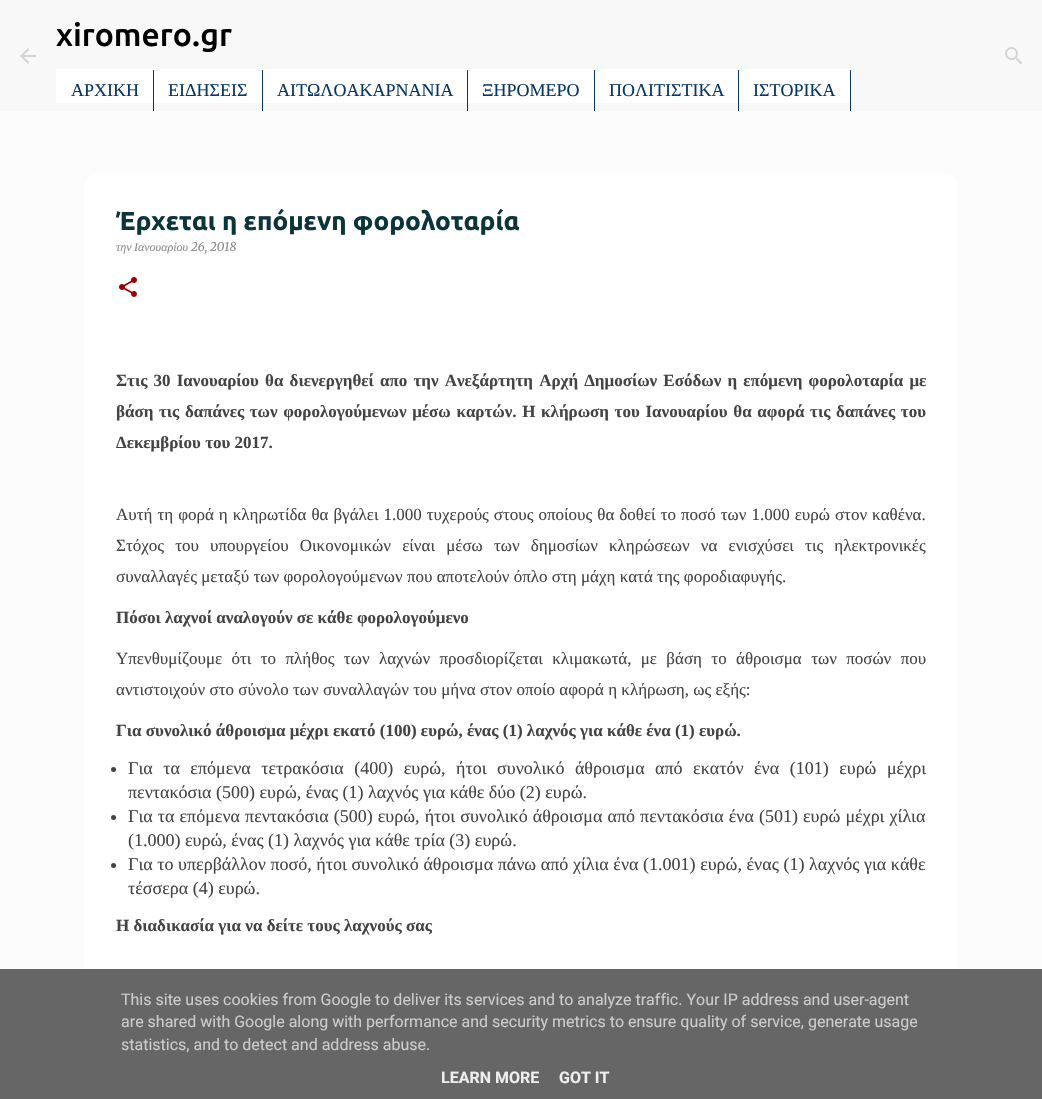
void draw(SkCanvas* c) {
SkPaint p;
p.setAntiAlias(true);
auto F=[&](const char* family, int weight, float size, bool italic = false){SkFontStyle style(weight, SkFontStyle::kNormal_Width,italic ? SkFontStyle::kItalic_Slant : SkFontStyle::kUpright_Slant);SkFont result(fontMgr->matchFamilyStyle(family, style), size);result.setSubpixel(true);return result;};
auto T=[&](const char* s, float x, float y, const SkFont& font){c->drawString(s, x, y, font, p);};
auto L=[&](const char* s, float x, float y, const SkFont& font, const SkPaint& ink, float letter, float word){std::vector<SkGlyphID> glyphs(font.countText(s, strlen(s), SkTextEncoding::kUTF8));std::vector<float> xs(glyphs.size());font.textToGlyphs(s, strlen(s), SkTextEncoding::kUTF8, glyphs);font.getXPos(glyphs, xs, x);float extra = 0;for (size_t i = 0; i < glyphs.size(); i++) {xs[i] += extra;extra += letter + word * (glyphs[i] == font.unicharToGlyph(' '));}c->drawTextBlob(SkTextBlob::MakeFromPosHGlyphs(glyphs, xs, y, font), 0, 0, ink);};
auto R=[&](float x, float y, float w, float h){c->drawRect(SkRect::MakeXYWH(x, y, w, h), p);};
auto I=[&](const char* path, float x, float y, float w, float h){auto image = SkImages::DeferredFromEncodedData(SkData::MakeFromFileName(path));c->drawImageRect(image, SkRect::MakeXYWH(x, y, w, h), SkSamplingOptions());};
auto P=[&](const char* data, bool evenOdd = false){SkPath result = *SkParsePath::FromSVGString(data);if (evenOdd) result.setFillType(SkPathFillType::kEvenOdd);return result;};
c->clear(0xfffcfcfc);
p.setColor(0xfff8f8f8);
R(0,0,1042,111);
I("1.png",20,48,16,16);
auto f1 = F("Ubuntu",500,32);
p.setColor(0xff000000);
T("xiromero.gr",56,46,f1);
p.setColor(0xffffffff);
R(56,69,796,34);
p.setColor(0xff073763);
R(153,70,1,41);
auto f2 = F("Liberation Serif",400,18);
T("ΑΡΧΙΚΗ",71,96,f2);
R(262,70,1,41);
T("ΕΙΔΗΣΕΙΣ",168,96,f2);
R(467,70,1,41);
T("ΑΙΤΩΛΟΑΚΑΡΝΑΝΙΑ",277,96,f2);
R(594,70,1,41);
T("ΞΗΡΟΜΕΡΟ",482,96,f2);
R(738,70,1,41);
T("ΠΟΛΙΤΙΣΤΙΚΑ",609,96,f2);
R(850,70,1,41);
T("ΙΣΤΟΡΙΚΑ",753,96,f2);
I("2.png",1005,47,17,18);
p.setColor(0xffffffff);
c->drawPath(P("M96 174h850c6.5 0 12 5.5 12 12v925h-874v-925c0-6.5 5.5-12 12-12z"),p);
auto f3 = F("Ubuntu",700,26);
p.setColor(0xff0c343d);
T("Έρχεται η επόμενη φορολοταρία",116,230,f3);
auto f4 = F("Liberation Serif",400,12,true);
p.setColor(0xff8b8b8b);
T("την",116,251,f4);
T("Ιανουαρίου",134,251,f4);
auto f5 = F("Merriweather",300,12,true);
T("26, 2018",191,251,f5);
I("3.png",119,277,18,20);
auto f6 = F("Liberation Serif",700,17);
p.setColor(0xff444444);
L("Στις 30 Ιανουαρίου θα διενεργηθεί απο την Ανεξάρτητη Αρχή Δημοσίων Εσόδων η επόμενη φορολοταρία με",116,386,f6,p,0,1.9);
L("βάση τις δαπάνες των φορολογούμενων μέσω καρτών. Η κλήρωση του Ιανουαρίου θα αφορά τις δαπάνες του",116,417,f6,p,0,1.4);
T("Δεκεμβρίου του 2017.",116,448,f6);
auto f7 = F("Liberation Serif",400,17);
L("Αυτή τη φορά η κληρωτίδα θα βγάλει 1.000 τυχερούς στους οποίους θα δοθεί το ποσό των 1.000 ευρώ στον καθένα.",116,520,f7,p,0,.75);
L("Στόχος του υπουργείου Οικονομικών είναι μέσω των δημοσίων κληρώσεων να ενισχύσει τις ηλεκτρονικές",116,551,f7,p,0,6.9);
T("συναλλαγές μεταξύ των φορολογούμενων που αποτελούν όπλο στη μάχη κατά της φοροδιαφυγής.",116,582,f7);
T("Πόσοι λαχνοί αναλογούν σε κάθε φορολογούμενο",116,623,f6);
L("Υπενθυμίζουμε ότι το πλήθος των λαχνών προσδιορίζεται κλιμακωτά, με βάση το άθροισμα των ποσών που",116,664,f7,p,0,5.1);
T("αντιστοιχούν στο σύνολο των συναλλαγών του μήνα στον οποίο αφορά η κλήρωση, ως εξής:",116,695,f7);
T("Για συνολικό άθροισμα μέχρι εκατό (100) ευρώ, ένας (1) λαχνός για κάθε ένα (1) ευρώ.",116,736,f6);
c->drawCircle(113.5,769.5,2.5,p);
L("Για τα επόμενα τετρακόσια (400) ευρώ, ήτοι συνολικό άθροισμα από εκατόν ένα (101) ευρώ μέχρι",128,774,f2,p,0,6);
T("πεντακόσια (500) ευρώ, ένας (1) λαχνός για κάθε δύο (2) ευρώ.",128,798,f2);
c->drawCircle(113.5,817.5,2.5,p);
L("Για τα επόμενα πεντακόσια (500) ευρώ, ήτοι συνολικό άθροισμα από πεντακόσια ένα (501) ευρώ μέχρι χίλια",128,822,f2,p,0,.6);
T("(1.000) ευρώ, ένας (1) λαχνός για κάθε τρία (3) ευρώ.",128,846,f2);
c->drawCircle(113.5,865.5,2.5,p);
L("Για το υπερβάλλον ποσό, ήτοι συνολικό άθροισμα πάνω από χίλια ένα (1.001) ευρώ, ένας (1) λαχνός για κάθε",128,870,f2,p,0,.1);
T("τέσσερα (4) ευρώ.",128,894,f2);
T("Η διαδικασία για να δείτε τους λαχνούς σας",116,931,f6);
p.setColor(0xff666666);
R(0,969,1042,130);
auto f8 = F("Roboto",400,16);
p.setColor(0xffcccccc);
T("This site uses cookies from Google to deliver its services and to analyze traffic. Your IP address and user-agent",121,1005,f8);
T("are shared with Google along with performance and security metrics to ensure quality of service, generate usage",121,1027,f8);
T("statistics, and to detect and address abuse.",121,1050,f8);
auto f9 = F("Roboto",700,16);
p.setColor(0xffeeeeee);
T("LEARN MORE",441,1083,f9);
T("GOT IT",559,1083,f9);
}
